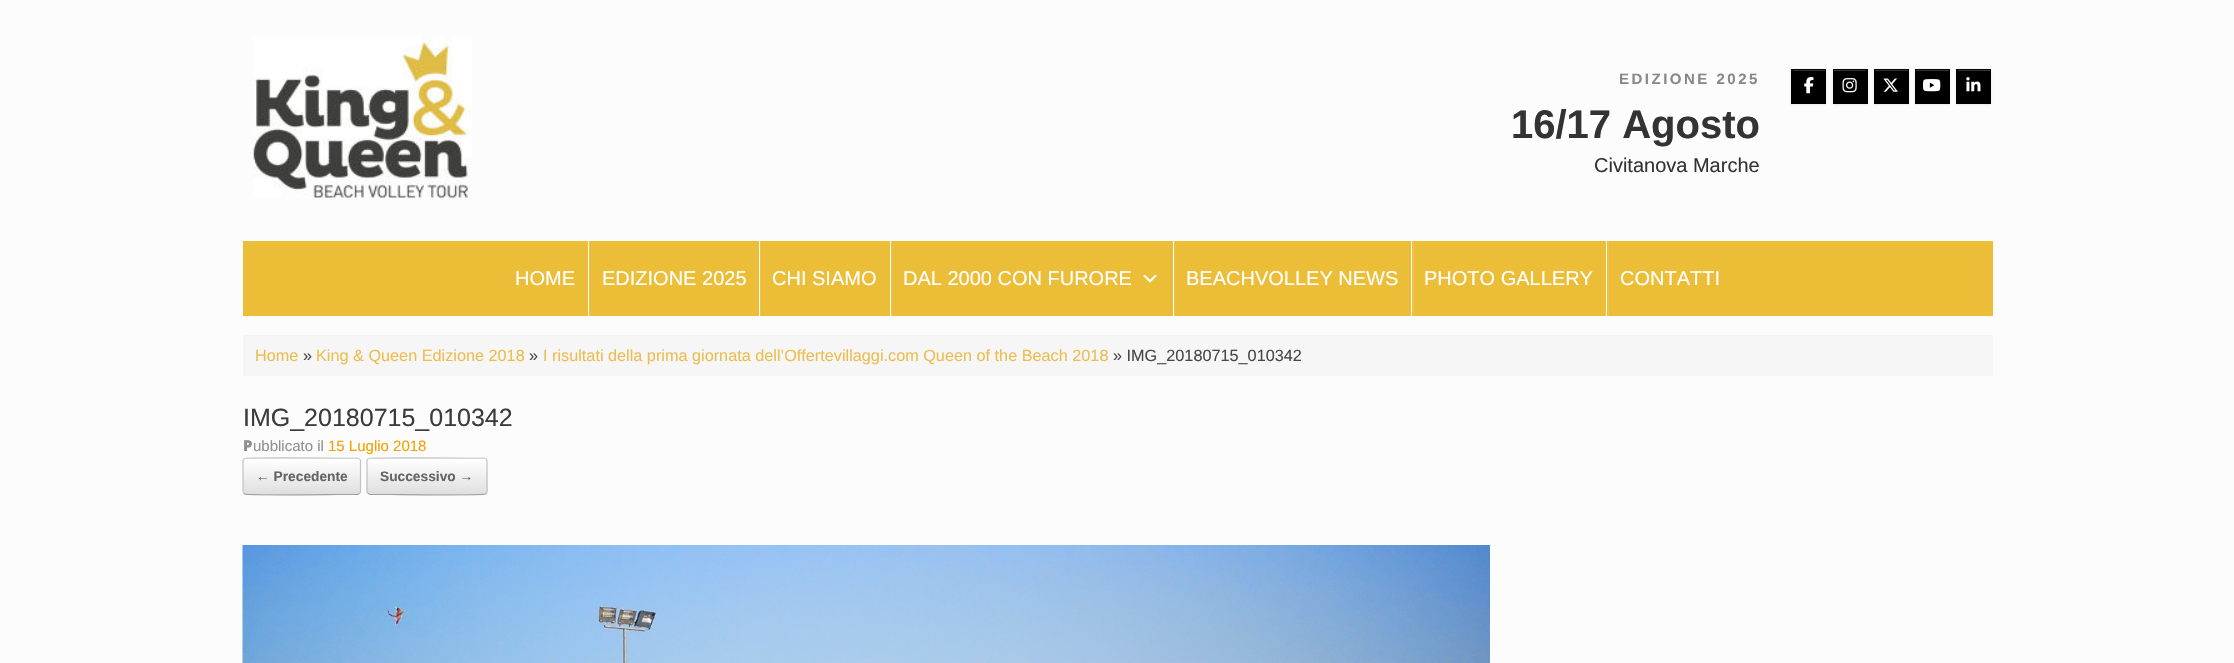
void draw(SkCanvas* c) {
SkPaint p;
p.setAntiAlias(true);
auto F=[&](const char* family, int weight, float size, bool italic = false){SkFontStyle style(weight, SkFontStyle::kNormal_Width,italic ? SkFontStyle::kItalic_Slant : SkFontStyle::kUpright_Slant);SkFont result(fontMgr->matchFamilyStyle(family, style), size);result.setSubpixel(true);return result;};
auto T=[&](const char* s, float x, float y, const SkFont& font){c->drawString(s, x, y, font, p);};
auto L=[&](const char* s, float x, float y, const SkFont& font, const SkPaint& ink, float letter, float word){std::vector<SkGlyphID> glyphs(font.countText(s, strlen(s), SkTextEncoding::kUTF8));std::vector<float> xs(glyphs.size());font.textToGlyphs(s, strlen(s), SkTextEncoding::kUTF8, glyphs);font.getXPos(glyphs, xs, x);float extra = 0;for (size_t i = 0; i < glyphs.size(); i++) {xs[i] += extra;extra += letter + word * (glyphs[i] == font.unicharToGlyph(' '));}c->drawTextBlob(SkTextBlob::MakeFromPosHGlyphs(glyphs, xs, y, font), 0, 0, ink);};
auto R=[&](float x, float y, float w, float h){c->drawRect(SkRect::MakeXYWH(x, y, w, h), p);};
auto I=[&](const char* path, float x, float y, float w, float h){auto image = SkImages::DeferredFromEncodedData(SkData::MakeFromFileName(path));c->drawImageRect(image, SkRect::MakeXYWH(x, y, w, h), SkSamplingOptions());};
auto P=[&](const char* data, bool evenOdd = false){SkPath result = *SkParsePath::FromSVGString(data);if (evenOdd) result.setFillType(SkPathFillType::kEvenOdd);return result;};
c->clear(0xfffcfcfc);
I("1.png",253,37,219,161);
auto f1 = F("Liberation Sans",700,15);
p.setColor(0xff888888);
L("EDIZIONE 2025",1619,84,f1,p,2.5,0);
auto f2 = F("Liberation Sans",700,40);
p.setColor(0xff333333);
T("16/17 Agosto",1511,138,f2);
auto f3 = F("Liberation Sans",400,20);
T("Civitanova Marche",1594,172,f3);
p.setColor(0x12000000);
p.setMaskFilter(SkMaskFilter::MakeBlur(kNormal_SkBlurStyle, 1));
c->drawRect(SkRect::MakeXYWH(1791,70,35,35),p);
p.setMaskFilter(nullptr);
p.setColor(0xff000000);
R(1792,70,33,34);
p.setColor(0xff333333);
R(1793,70,32,1);
p.setColor(0xff050505);
R(1791,69,35,1);
p.setColor(0xff000000);
R(1825,69,1,35);
R(1791,69,1,35);
I("2.png",1804,77,10,17);
p.setColor(0x12000000);
p.setMaskFilter(SkMaskFilter::MakeBlur(kNormal_SkBlurStyle, 1));
c->drawRect(SkRect::MakeXYWH(1833,70,35,35),p);
p.setMaskFilter(nullptr);
p.setColor(0xff000000);
R(1834,70,34,34);
p.setColor(0xff333333);
R(1834,70,32,1);
p.setColor(0xff050505);
R(1833,69,35,1);
p.setColor(0xff000000);
R(1866,69,1,1);
R(1833,69,1,35);
I("3.png",1842,78,15,15);
p.setColor(0x12000000);
p.setMaskFilter(SkMaskFilter::MakeBlur(kNormal_SkBlurStyle, 1));
c->drawRect(SkRect::MakeXYWH(1874,70,35,35),p);
p.setMaskFilter(nullptr);
p.setColor(0xff000000);
R(1875,71,33,33);
p.setColor(0xff333333);
R(1875,70,33,1);
p.setColor(0xff050505);
R(1874,69,35,1);
p.setColor(0xff000000);
R(1908,69,1,35);
R(1874,69,1,35);
I("4.png",1883,78,15,14);
p.setColor(0x12000000);
p.setMaskFilter(SkMaskFilter::MakeBlur(kNormal_SkBlurStyle, 1));
c->drawRect(SkRect::MakeXYWH(1915,70,35,35),p);
p.setMaskFilter(nullptr);
p.setColor(0xff000000);
R(1916,71,33,33);
p.setColor(0xff333333);
R(1916,70,33,1);
p.setColor(0xff050505);
R(1915,69,35,1);
p.setColor(0xff000000);
R(1949,69,1,35);
R(1915,69,1,35);
I("5.png",1922,79,19,13);
p.setColor(0x12000000);
p.setMaskFilter(SkMaskFilter::MakeBlur(kNormal_SkBlurStyle, 1));
c->drawRect(SkRect::MakeXYWH(1956,70,35,35),p);
p.setMaskFilter(nullptr);
p.setColor(0xff000000);
R(1957,70,33,34);
p.setColor(0xff333333);
R(1958,70,32,1);
p.setColor(0xff050505);
R(1956,69,35,1);
p.setColor(0xff000000);
R(1990,69,1,35);
R(1956,69,1,35);
I("6.png",1966,77,15,15);
p.setColor(0xffecbd37);
R(243,241,1750,75);
p.setColor(0xffffffff);
T("HOME",515,285,f3);
p.setColor(0xffeec44b);
R(589,241,1,75);
p.setColor(0xffffffff);
R(588,241,1,75);
T("EDIZIONE 2025",602,285,f3);
p.setColor(0xffeec44b);
R(760,241,1,75);
p.setColor(0xffffffff);
R(759,241,1,75);
T("CHI SIAMO",772,285,f3);
p.setColor(0xffeec44b);
R(891,241,1,75);
p.setColor(0xffffffff);
R(890,241,1,75);
T("DAL 2000 CON FURORE",903,285,f3);
I("7.png",1143,274,14,9);
p.setColor(0xffeec44b);
R(1174,241,1,75);
p.setColor(0xffffffff);
R(1173,241,1,75);
T("BEACHVOLLEY NEWS",1186,285,f3);
p.setColor(0xffeec44b);
R(1413,241,1,75);
p.setColor(0xffffffff);
R(1411,241,1,75);
T("PHOTO GALLERY",1424,285,f3);
p.setColor(0xffeec44b);
R(1608,241,1,75);
p.setColor(0xffffffff);
R(1606,241,1,75);
T("CONTATTI",1620,285,f3);
p.setColor(0xfff6f6f6);
R(243,335,1750,41);
auto f4 = F("Liberation Sans",400,16.25);
p.setColor(0xffedbd50);
T("Home",255,361,f4);
p.setColor(0xff474747);
T("»",303,361,f4);
p.setColor(0xffedbd50);
T("King & Queen Edizione 2018",316,361,f4);
p.setColor(0xff474747);
T("»",529,361,f4);
p.setColor(0xffedbd50);
T("I risultati della prima giornata dell’Offertevillaggi.com Queen of the Beach 2018",543,361,f4);
p.setColor(0xff474747);
T("» IMG_20180715_010342",1113,361,f4);
auto f5 = F("Liberation Sans",400,25);
p.setColor(0xff3b3b3b);
T("IMG_20180715_010342",243,426,f5);
auto f6 = F("Noto Sans",900,15);
p.setColor(0xff8f8f8f);
T("P",243,451,f6);
auto f7 = F("Liberation Sans",400,15);
T("ubblicato il",253,451,f7);
p.setColor(0xfff2a100);
T("15 Luglio 2018",328,451,f7);
c->save();
c->clipPath(P("M247 458h110c2 0 4 2 4 4v29c0 2-2 4-4 4h-110c-2 0-4-2-4-4v-29c0-2 2-4 4-4z"),true);
{
const SkColor colors[] = {0xffdfdfdf,0xffffffff};
const float stops[] = {0,1};
const SkPoint ends[] = {{244,459}, {244,424}};
p.setShader(SkGradientShader::MakeLinear(ends, colors, stops, 2, SkTileMode::kClamp));
p.setAlpha(255);
}
R(243,458,118,1);
{
const SkColor colors[] = {0xffdfdfdf,0xffffffff};
const float stops[] = {0,1};
const SkPoint ends[] = {{244,494}, {244,459}};
p.setShader(SkGradientShader::MakeLinear(ends, colors, stops, 2, SkTileMode::kClamp));
p.setAlpha(255);
}
R(243,459,118,35);
c->restore();
p.setStroke(true);
p.setStrokeWidth(1.2);
p.setShader(nullptr);
p.setColor(0xffd2d2d2);
c->drawPath(P("M244 459l.5-.5c2.5-1.5 84.5-.5 94.5-.5h18.5l2 1"),p);
p.setColor(0xffc3c3c3);
c->drawPath(P("M359.5 459c1 .5 1 1.5 1 2v30c0 1 0 2-1 2.5"),p);
p.setColor(0xff9f9f9f);
c->drawPath(P("M359.5 493.5l-2 1h-18.5c-10 0-92 1-94.5-.5l-.5-.5"),p);
p.setColor(0xffc3c3c3);
c->drawPath(P("M244 493.5c-.5-.5-1-1.5-1-2.5v-30c0-.5 .5-1.5 1-2"),p);
auto f8 = F("Liberation Sans",700,13.75);
p.setStroke(false);
p.setColor(0xff646464);
T("← Precedente",256,481,f8);
c->save();
c->clipPath(P("M370 458h114c2 0 4 2 4 4v29c0 2-2 4-4 4h-114c-2 0-4-2-4-4v-29c0-2 2-4 4-4z"),true);
{
const SkColor colors[] = {0xffdfdfdf,0xffffffff};
const float stops[] = {0,1};
const SkPoint ends[] = {{368,459}, {368,424}};
p.setShader(SkGradientShader::MakeLinear(ends, colors, stops, 2, SkTileMode::kClamp));
p.setAlpha(255);
}
R(366,458,122,1);
{
const SkColor colors[] = {0xffdfdfdf,0xffffffff};
const float stops[] = {0,1};
const SkPoint ends[] = {{368,494}, {368,459}};
p.setShader(SkGradientShader::MakeLinear(ends, colors, stops, 2, SkTileMode::kClamp));
p.setAlpha(255);
}
R(366,459,122,35);
{
const SkColor colors[] = {0xffdfdfdf,0xffffffff};
const float stops[] = {0,1};
const SkPoint ends[] = {{368,529}, {368,494}};
p.setShader(SkGradientShader::MakeLinear(ends, colors, stops, 2, SkTileMode::kClamp));
p.setAlpha(255);
}
R(366,494,122,1);
c->restore();
p.setStroke(true);
p.setShader(nullptr);
p.setColor(0xffd2d2d2);
c->drawPath(P("M368 459l.5-.5c2-1.5 86.5-.5 96.5-.5h19l2 1"),p);
p.setColor(0xffc3c3c3);
c->drawPath(P("M486 459c.5 .5 1 1.5 1 2v30c0 1-.5 2-1 2.5"),p);
p.setColor(0xff9f9f9f);
c->drawPath(P("M486 493.5l-.5 .5c-2.5 1.5-86.5 .5-96.5 .5h-19l-2-1"),p);
p.setColor(0xffc3c3c3);
c->drawPath(P("M368 493.5c-1-.5-1-1.5-1-2.5v-30c0-.5 0-1.5 1-2"),p);
p.setStroke(false);
p.setColor(0xff646464);
T("Successivo →",380,481,f8);
I("8.png",242,545,1248,118);
}
